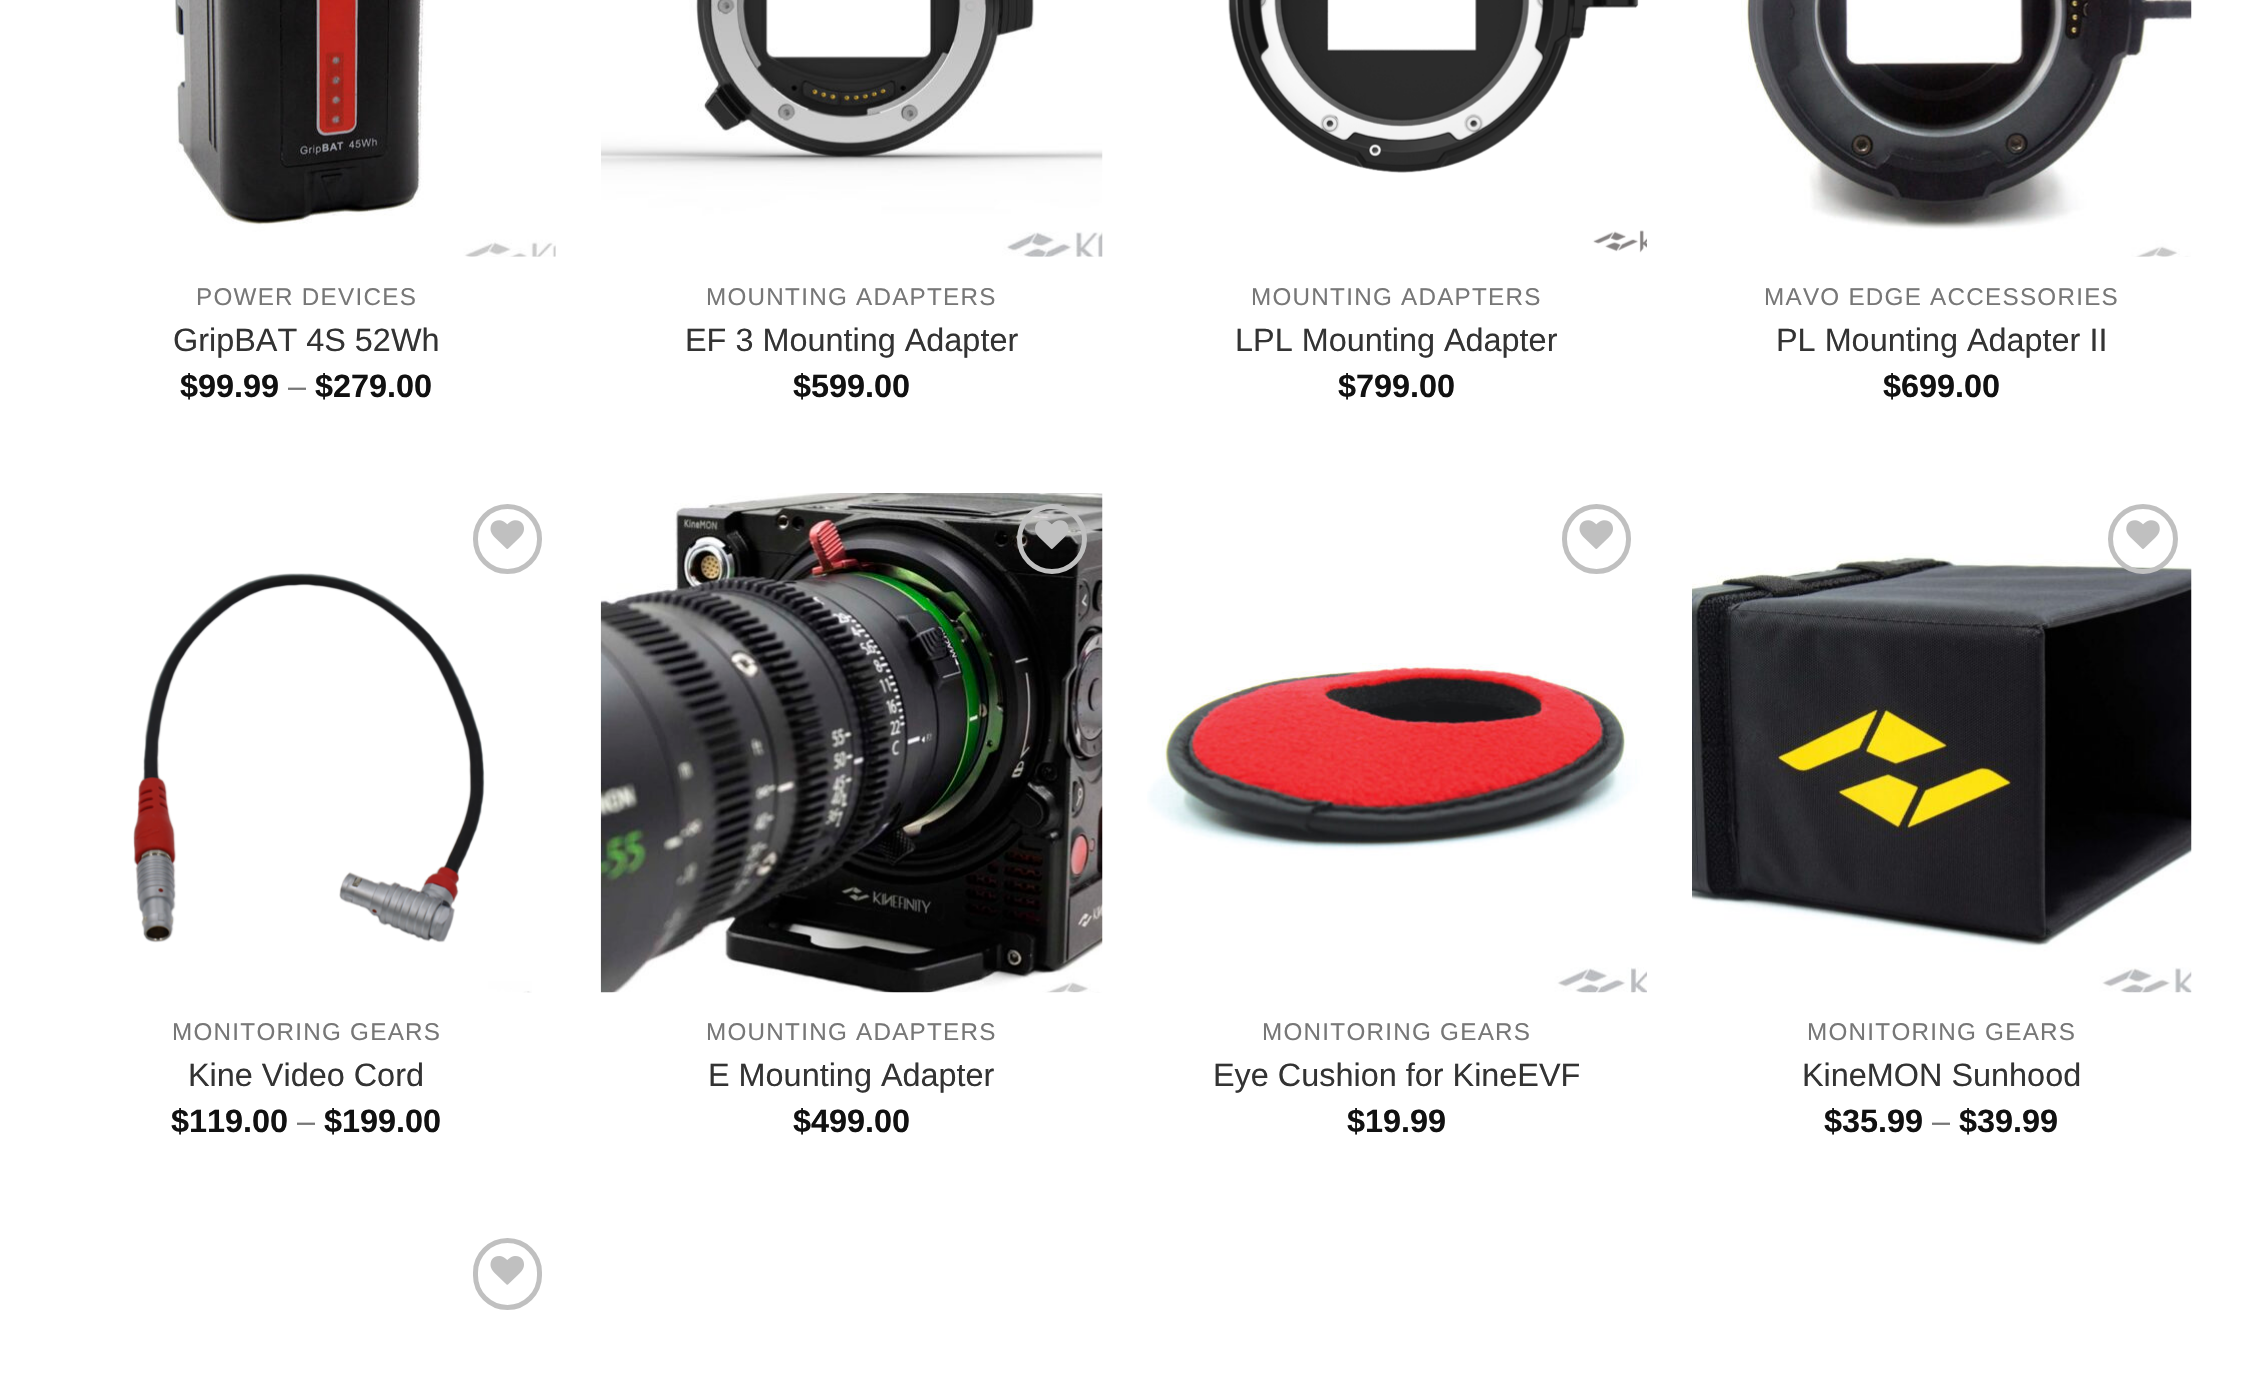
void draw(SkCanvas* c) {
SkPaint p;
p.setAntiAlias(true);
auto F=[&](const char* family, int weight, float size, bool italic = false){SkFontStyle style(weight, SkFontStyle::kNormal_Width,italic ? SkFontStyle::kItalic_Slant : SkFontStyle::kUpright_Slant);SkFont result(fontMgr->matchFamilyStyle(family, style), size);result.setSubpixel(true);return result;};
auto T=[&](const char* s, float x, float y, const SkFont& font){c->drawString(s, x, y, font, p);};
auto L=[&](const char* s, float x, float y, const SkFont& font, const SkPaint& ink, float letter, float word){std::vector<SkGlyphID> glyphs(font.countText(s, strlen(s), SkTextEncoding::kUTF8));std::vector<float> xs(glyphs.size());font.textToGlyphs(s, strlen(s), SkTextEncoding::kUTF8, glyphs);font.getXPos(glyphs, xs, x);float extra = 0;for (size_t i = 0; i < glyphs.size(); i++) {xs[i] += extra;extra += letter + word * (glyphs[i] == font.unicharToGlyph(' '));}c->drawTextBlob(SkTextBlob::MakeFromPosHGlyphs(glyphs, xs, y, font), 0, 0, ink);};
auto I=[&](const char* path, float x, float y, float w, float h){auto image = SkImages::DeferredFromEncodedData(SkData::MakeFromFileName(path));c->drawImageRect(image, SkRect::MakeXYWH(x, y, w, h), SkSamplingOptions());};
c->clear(0xffffffff);
I("1.png",174,0,382,257);
auto f1 = F("Liberation Sans",400,24.25);
p.setColor(0xff777777);
L("POWER DEVICES",196,305,f1,p,1.25,0);
auto f2 = F("Liberation Sans",400,32.4);
p.setColor(0xff333333);
T("GripBAT 4S 52Wh",173,351,f2);
auto f3 = F("Liberation Sans",700,32.4);
p.setColor(0xff111111);
T("$99.99",180,397,f3);
p.setColor(0xff777777);
T("–",288,397,f2);
p.setColor(0xff111111);
T("$279.00",315,397,f3);
I("2.png",601,0,502,257);
p.setColor(0xff777777);
L("MOUNTING ADAPTERS",706,305,f1,p,1.25,0);
p.setColor(0xff333333);
T("EF 3 Mounting Adapter",685,351,f2);
p.setColor(0xff111111);
T("$599.00",793,397,f3);
I("3.png",1228,0,419,253);
p.setColor(0xff777777);
L("MOUNTING ADAPTERS",1251,305,f1,p,1.25,0);
p.setColor(0xff333333);
T("LPL Mounting Adapter",1235,351,f2);
p.setColor(0xff111111);
T("$799.00",1338,397,f3);
I("4.png",1741,0,451,257);
p.setColor(0xff777777);
L("MAVO EDGE ACCESSORIES",1764,305,f1,p,1.25,0);
p.setColor(0xff333333);
T("PL Mounting Adapter II",1776,351,f2);
p.setColor(0xff111111);
T("$699.00",1883,397,f3);
I("6.png",133,573,399,420);
p.setStroke(true);
p.setStrokeWidth(5);
p.setColor(0xffc0c0c0);
c->drawRoundRect(SkRect::MakeXYWH(475.5,506.5,64,65),32,32,p);
I("5.png",490,520,34,29);
p.setStroke(false);
p.setColor(0xff777777);
L("MONITORING GEARS",172,1040,f1,p,1.25,0);
p.setColor(0xff333333);
T("Kine Video Cord",188,1086,f2);
p.setColor(0xff111111);
T("$119.00",171,1132,f3);
p.setColor(0xff777777);
T("–",297,1132,f2);
p.setColor(0xff111111);
T("$199.00",324,1132,f3);
I("7.png",600,493,503,500);
p.setStroke(true);
p.setColor(0xffc0c0c0);
c->drawCircle(1052,539,32.5,p);
I("8.png",1035,520,34,29);
p.setStroke(false);
p.setColor(0xff777777);
L("MOUNTING ADAPTERS",706,1040,f1,p,1.25,0);
p.setColor(0xff333333);
T("E Mounting Adapter",708,1086,f2);
p.setColor(0xff111111);
T("$499.00",793,1132,f3);
p.setStroke(true);
p.setColor(0xffc0c0c0);
c->drawRoundRect(SkRect::MakeXYWH(1564.5,506.5,64,65),32,32,p);
I("5.png",1579,520,34,29);
I("9.png",1147,663,500,330);
p.setStroke(false);
p.setColor(0xff777777);
L("MONITORING GEARS",1262,1040,f1,p,1.25,0);
p.setColor(0xff333333);
T("Eye Cushion for KineEVF",1213,1086,f2);
p.setColor(0xff111111);
T("$19.99",1347,1132,f3);
I("11.png",1692,553,500,440);
p.setStroke(true);
p.setColor(0xffc0c0c0);
c->drawCircle(2143,539,32.5,p);
I("10.png",2126,520,34,29);
p.setStroke(false);
p.setColor(0xff777777);
L("MONITORING GEARS",1807,1040,f1,p,1.25,0);
p.setColor(0xff333333);
T("KineMON Sunhood",1802,1086,f2);
p.setColor(0xff111111);
T("$35.99",1824,1132,f3);
p.setColor(0xff777777);
T("–",1932,1132,f2);
p.setColor(0xff111111);
T("$39.99",1959,1132,f3);
p.setStroke(true);
p.setColor(0xffc0c0c0);
c->drawRoundRect(SkRect::MakeXYWH(475.5,1240.5,64,67),32,32,p);
I("12.png",490,1256,34,29);
}
